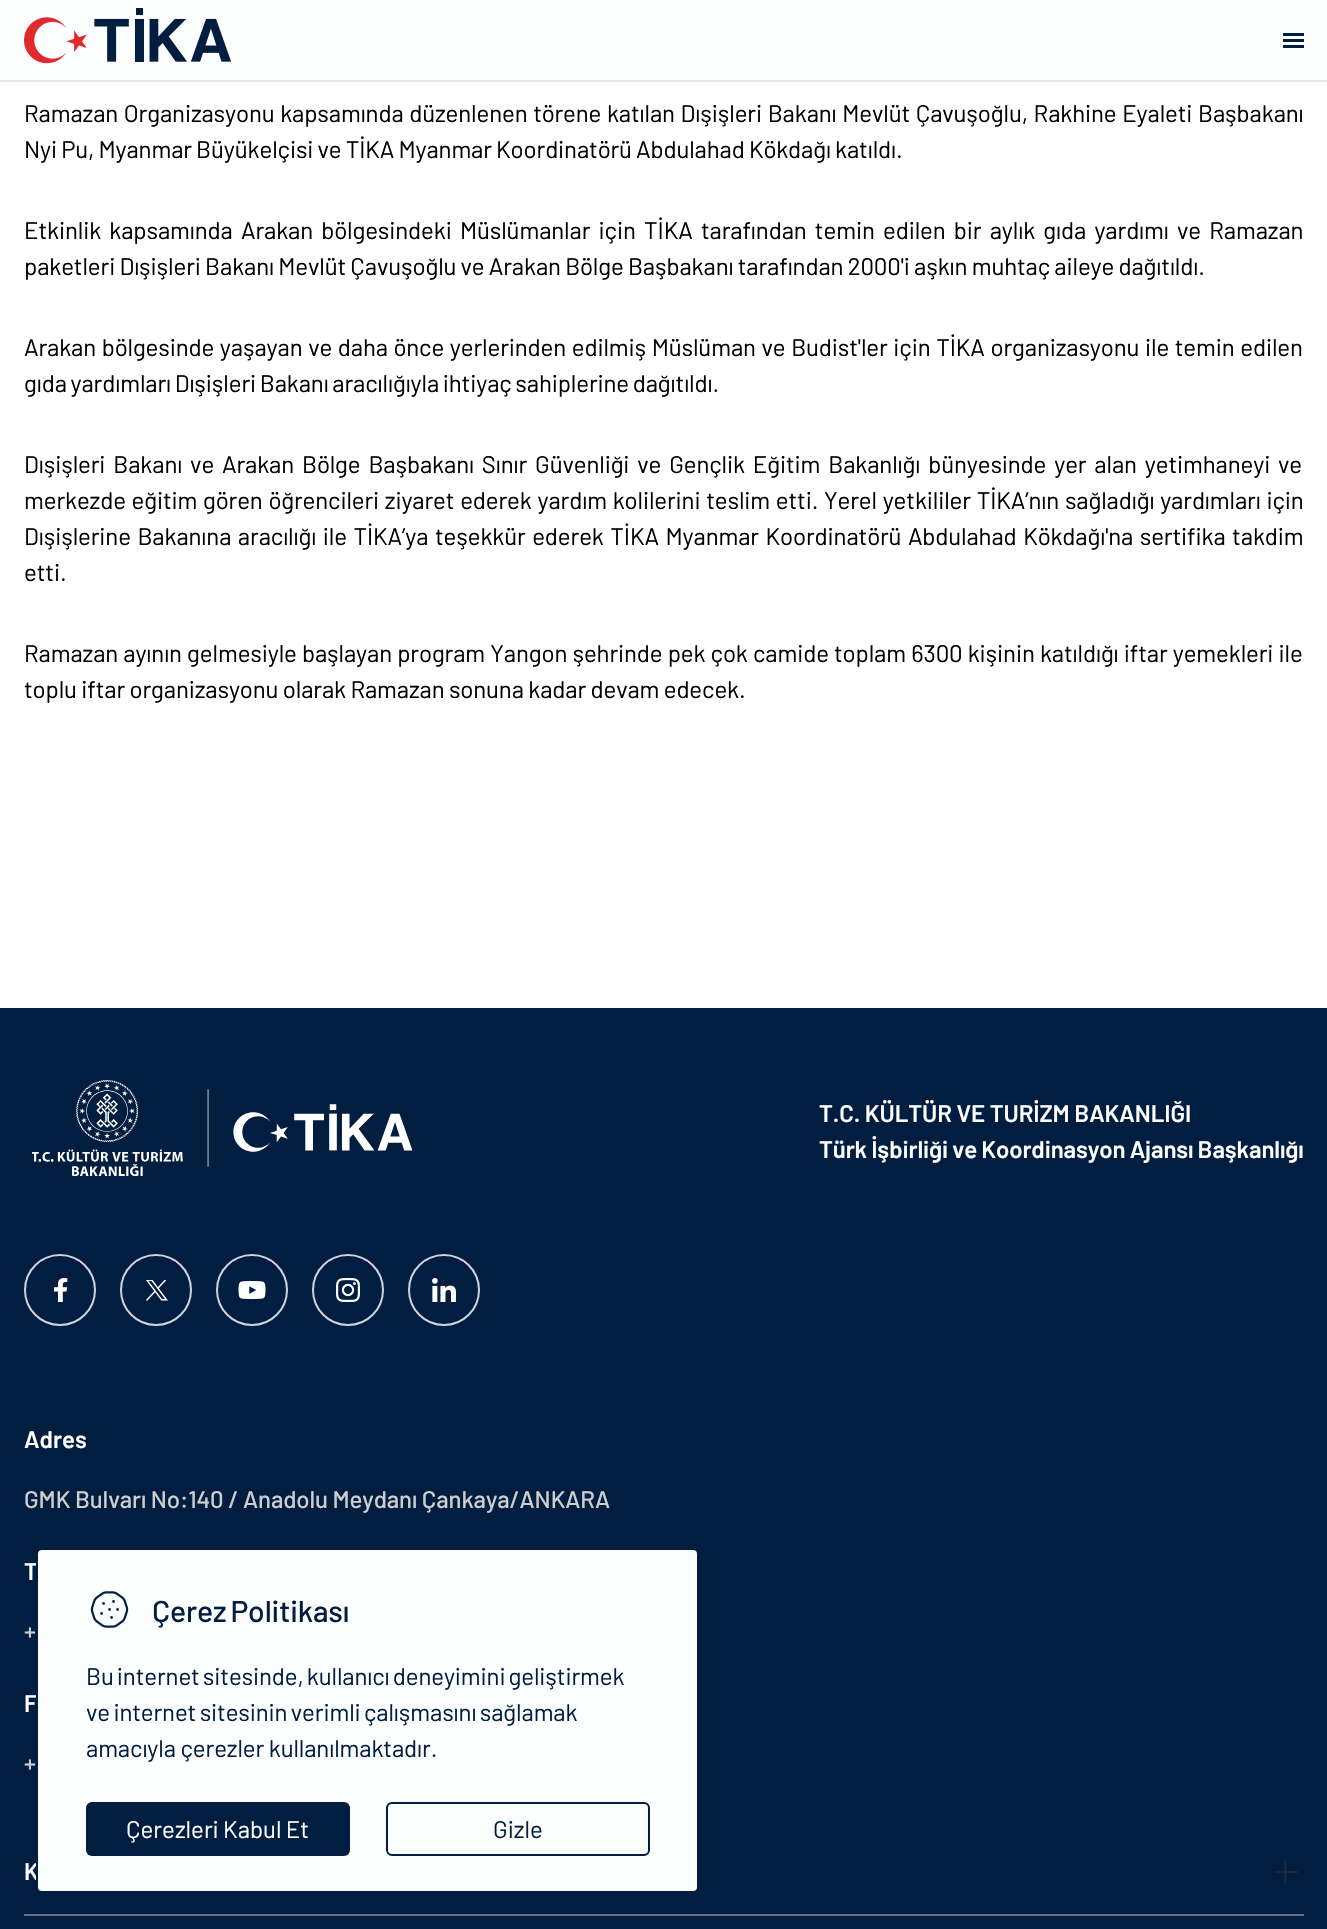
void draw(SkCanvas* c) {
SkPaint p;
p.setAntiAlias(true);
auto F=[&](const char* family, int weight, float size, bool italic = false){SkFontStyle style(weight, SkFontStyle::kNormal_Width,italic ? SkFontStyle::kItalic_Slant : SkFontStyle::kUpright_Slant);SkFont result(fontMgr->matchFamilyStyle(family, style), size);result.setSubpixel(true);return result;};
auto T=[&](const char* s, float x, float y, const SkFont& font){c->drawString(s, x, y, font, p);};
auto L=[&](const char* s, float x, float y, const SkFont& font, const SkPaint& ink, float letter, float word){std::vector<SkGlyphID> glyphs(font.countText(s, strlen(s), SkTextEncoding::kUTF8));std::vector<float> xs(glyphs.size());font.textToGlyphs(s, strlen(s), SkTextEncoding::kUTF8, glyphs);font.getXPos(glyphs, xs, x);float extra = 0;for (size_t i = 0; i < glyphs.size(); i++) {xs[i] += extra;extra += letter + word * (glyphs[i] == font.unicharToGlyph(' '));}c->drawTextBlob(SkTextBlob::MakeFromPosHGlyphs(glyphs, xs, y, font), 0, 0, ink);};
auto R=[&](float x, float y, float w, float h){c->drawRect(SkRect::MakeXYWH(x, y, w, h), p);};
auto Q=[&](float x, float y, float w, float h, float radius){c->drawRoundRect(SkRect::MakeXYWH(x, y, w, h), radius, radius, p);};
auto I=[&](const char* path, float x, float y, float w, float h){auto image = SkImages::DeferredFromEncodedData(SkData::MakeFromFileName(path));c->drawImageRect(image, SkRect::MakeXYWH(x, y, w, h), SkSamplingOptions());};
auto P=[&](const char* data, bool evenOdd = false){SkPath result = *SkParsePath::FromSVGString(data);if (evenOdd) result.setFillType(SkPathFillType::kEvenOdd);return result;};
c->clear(0xffffffff);
p.setColor(0xffe4e7ec);
R(0,80,1327,2);
p.setColor(0xfffcfdfd);
R(0,0,1327,80);
I("1.png",24,8,208,56);
p.setColor(0xff011e41);
R(1283,33,21,3);
R(1283,39,21,3);
R(1283,45,21,3);
auto f1 = F("Barlow",400,24);
p.setColor(0xff000000);
L("Ramazan Organizasyonu kapsamında düzenlenen törene katılan Dışişleri Bakanı Mevlüt Çavuşoğlu, Rakhine Eyaleti Başbakanı",24,122,f1,p,-.12,1);
L("Nyi Pu, Myanmar Büyükelçisi ve TİKA Myanmar Koordinatörü Abdulahad Kökdağı katıldı.",24,158,f1,p,-.12,-.5);
L("Etkinlik kapsamında Arakan bölgesindeki Müslümanlar için TİKA tarafından temin edilen bir aylık gıda yardımı ve Ramazan",24,239,f1,p,-.12,3.6);
L("paketleri Dışişleri Bakanı Mevlüt Çavuşoğlu ve Arakan Bölge Başbakanı tarafından 2000'i aşkın muhtaç aileye dağıtıldı.",24,275,f1,p,-.12,-.4);
L("Arakan bölgesinde yaşayan ve daha önce yerlerinden edilmiş Müslüman ve Budist'ler için TİKA organizasyonu ile temin edilen",24,356,f1,p,-.12,1);
L("gıda yardımları Dışişleri Bakanı aracılığıyla ihtiyaç sahiplerine dağıtıldı.",24,392,f1,p,-.12,-1);
L("Dışişleri Bakanı ve Arakan Bölge Başbakanı Sınır Güvenliği ve Gençlik Eğitim Bakanlığı bünyesinde yer alan yetimhaneyi ve",24,473,f1,p,-.12,3.25);
L("merkezde eğitim gören öğrencileri ziyaret ederek yardım kolilerini teslim etti. Yerel yetkililer TİKA’nın sağladığı yardımları için",24,509,f1,p,-.12,1.1);
L("Dışişlerine Bakanına aracılığı ile TİKA’ya teşekkür ederek TİKA Myanmar Koordinatörü Abdulahad Kökdağı'na sertifika takdim",24,545,f1,p,-.12,1.9);
L("etti.",24,581,f1,p,-.12,0);
L("Ramazan ayının gelmesiyle başlayan program Yangon şehrinde pek çok camide toplam 6300 kişinin katıldığı iftar yemekleri ile",24,662,f1,p,-.12,.5);
L("toplu iftar organizasyonu olarak Ramazan sonuna kadar devam edecek.",24,698,f1,p,-.12,-.25);
p.setColor(0xff011e41);
R(0,1008,1327,921);
I("2.png",32,1080,381,96);
auto f2 = F("Barlow",600,24);
p.setColor(0xffffffff);
L("T.C. KÜLTÜR VE TURİZM BAKANLIĞI",819,1122,f2,p,-.12,0);
L("Türk İşbirliği ve Koordinasyon Ajansı Başkanlığı",819,1158,f2,p,-.12,-.5);
p.setStroke(true);
p.setStrokeWidth(2);
p.setColor(0xffd0d5dd);
c->drawCircle(60,1290,35,p);
I("3.png",54,1278,14,24);
c->drawCircle(156,1290,35,p);
I("4.png",146,1280,22,21);
c->drawCircle(252,1290,35,p);
I("5.png",238,1281,28,18);
c->drawCircle(348,1290,35,p);
I("6.png",336,1278,24,24);
c->drawCircle(444,1290,35,p);
I("7.png",432,1278,24,24);
p.setStroke(false);
p.setColor(0xffffffff);
T("Adres",24,1448,f2);
auto f3 = F("Barlow",500,24);
p.setColor(0xffcecece);
L("GMK Bulvarı No:140 / Anadolu Meydanı Çankaya/ANKARA",24,1508,f3,p,-.12,0);
p.setColor(0xffffffff);
T("T",24,1580,f2);
p.setColor(0xffcecece);
L("+",24,1640,f3,p,-.12,0);
p.setColor(0xffffffff);
T("F",24,1712,f2);
p.setColor(0xffcecece);
L("+",24,1772,f3,p,-.12,0);
p.setColor(0xff667085);
R(24,1914,1280,2);
p.setColor(0xffffffff);
L("K",24,1880,f2,p,-.12,0);
p.setStroke(true);
p.setStrokeWidth(2.2);
p.setColor(0xff1d2939);
c->drawPath(P("M1285.5 1860v24"),p);
p.setStroke(false);
R(1274,1871,24,2);
p.setColor(0xfffcfdfd);
c->drawRoundRect(SkRect::MakeXYWH(37,1549,661,343),5,5,p);
p.setStroke(true);
p.setStrokeWidth(2);
p.setColor(0xff011e41);
c->drawRoundRect(SkRect::MakeXYWH(37,1549,661,343),5,5,p);
I("8.png",90,1591,39,37);
auto f4 = F("Barlow",500,30);
p.setStroke(false);
L("Çerez Politikası",152,1622,f4,p,-.1,-2);
L("Bu internet sitesinde, kullanıcı deneyimini geliştirmek",86,1685,f1,p,-.12,-1.5);
L("ve internet sitesinin verimli çalışmasını sağlamak",86,1721,f1,p,-.12,-1.25);
L("amacıyla çerezler kullanılmaktadır.",86,1757,f1,p,-.12,0);
Q(86,1802,264,54,6);
p.setColor(0xffffffff);
L("Çerezleri Kabul Et",126,1838,f1,p,0,-.5);
p.setStroke(true);
p.setColor(0xff011e41);
c->drawRoundRect(SkRect::MakeXYWH(387,1803,262,52),5,5,p);
p.setStroke(false);
T("Gizle",493,1838,f1);
}
